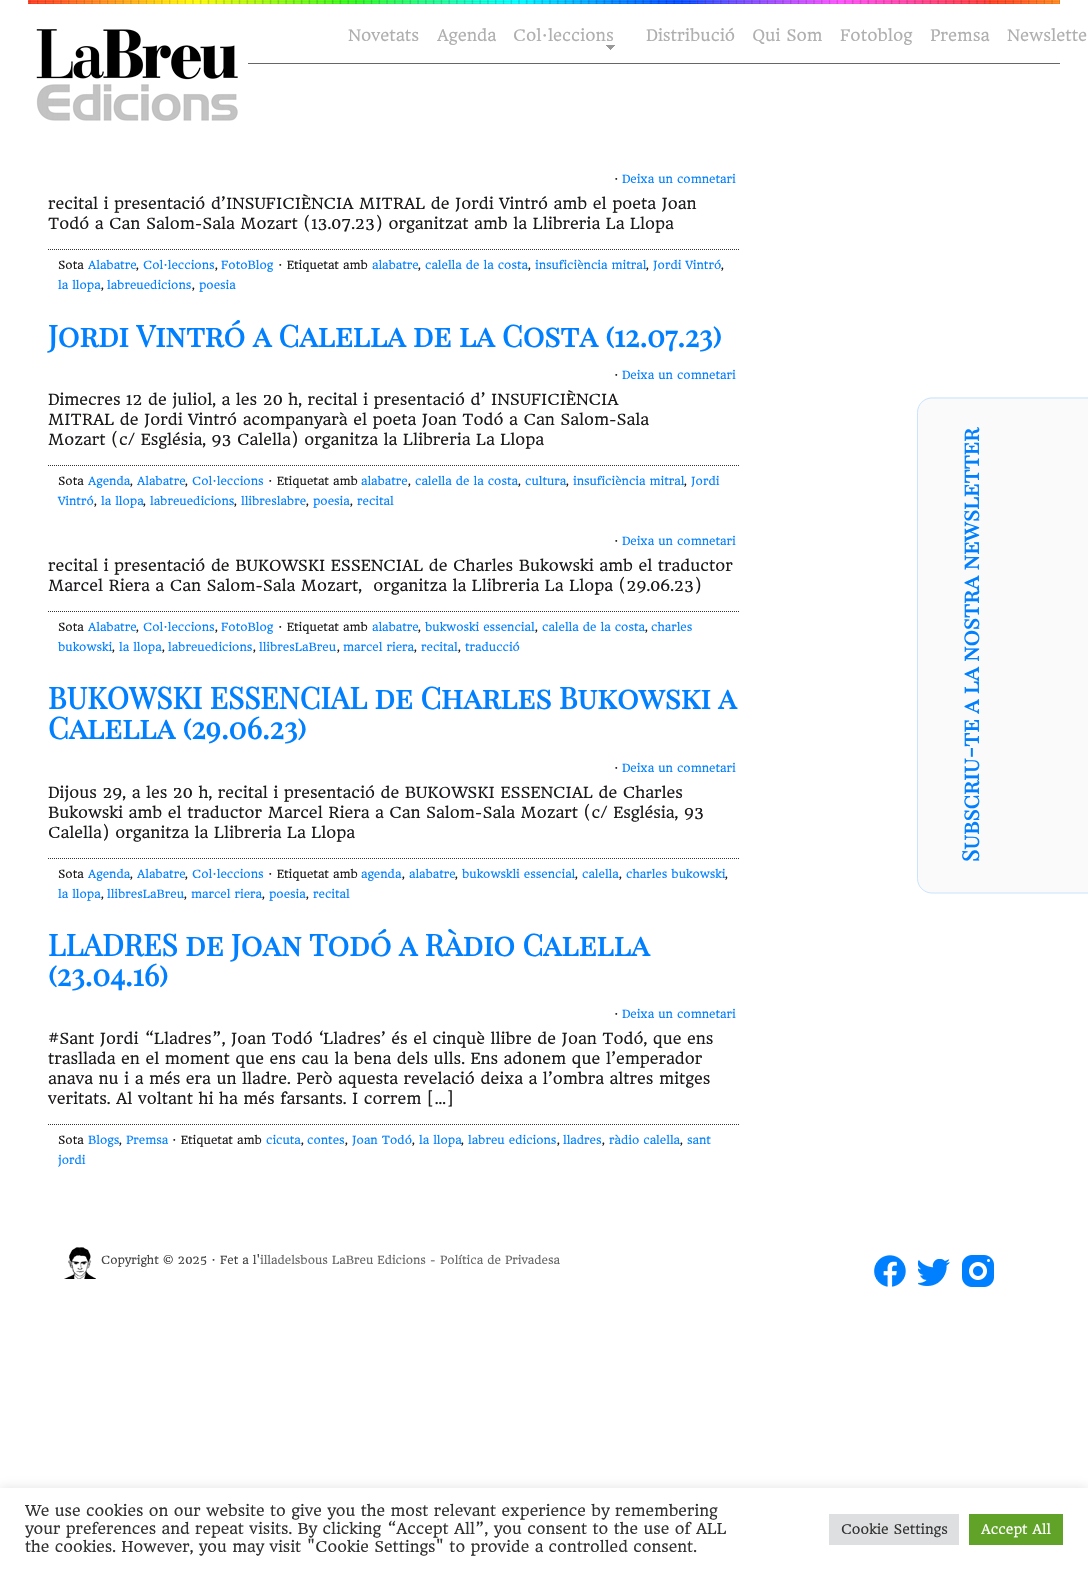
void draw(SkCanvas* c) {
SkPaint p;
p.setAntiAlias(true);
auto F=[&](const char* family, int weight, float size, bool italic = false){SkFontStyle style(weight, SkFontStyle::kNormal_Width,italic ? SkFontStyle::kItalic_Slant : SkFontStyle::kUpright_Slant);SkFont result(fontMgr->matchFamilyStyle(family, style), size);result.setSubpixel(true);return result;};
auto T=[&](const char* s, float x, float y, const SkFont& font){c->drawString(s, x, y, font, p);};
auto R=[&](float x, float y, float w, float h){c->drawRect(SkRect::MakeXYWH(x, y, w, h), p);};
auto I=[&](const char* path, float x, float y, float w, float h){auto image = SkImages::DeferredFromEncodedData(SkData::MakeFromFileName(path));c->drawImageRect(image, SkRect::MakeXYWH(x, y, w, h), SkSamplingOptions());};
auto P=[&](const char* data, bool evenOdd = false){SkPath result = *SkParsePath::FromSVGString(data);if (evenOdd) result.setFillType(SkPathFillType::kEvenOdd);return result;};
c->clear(0xffffffff);
I("1.png",28,0,1032,4);
p.setColor(0xff666666);
R(248,63,812,1);
I("2.png",28,29,220,92);
auto f1 = F("HeadlandOne",400,15.5);
p.setColor(0xffafafaf);
T("Novetats",348,41,f1);
T("Agenda",437,41,f1);
T("Col·leccions",513,41,f1);
I("3.png",606,45,9,5);
T("Distribució",646,41,f1);
T("Qui Som",752,41,f1);
T("Fotoblog",840,41,f1);
T("Premsa",930,41,f1);
T("Newslette",1007,41,f1);
auto f2 = F("HeadlandOne",400,11);
p.setColor(0xff1d1a1a);
T("·",614,183,f2);
p.setColor(0xff0080ff);
T("Deixa un comnetari",622,183,f2);
auto f3 = F("HeadlandOne",400,15);
p.setColor(0xff1d1a1a);
T("recital i presentació d’INSUFICIÈNCIA MITRAL de Jordi Vintró amb el poeta Joan",48,209,f3);
T("Todó a Can Salom-Sala Mozart (13.07.23) organitzat amb la Llibreria La Llopa",48,229,f3);
p.setStroke(true);
p.setStrokeWidth(1);
p.setColor(0xff333333);
p.setPathEffect(SkDashPathEffect::Make({{1,1}}, 0));
c->drawPath(P("M48 249.5h691"),p);
p.setPathEffect(nullptr);
p.setStroke(false);
p.setColor(0xff1d1a1a);
T("Sota",58,269,f2);
p.setColor(0xff0080ff);
T("Alabatre",88,269,f2);
p.setColor(0xff1d1a1a);
T(",",136,269,f2);
p.setColor(0xff0080ff);
T("Col·leccions",143,269,f2);
p.setColor(0xff1d1a1a);
T(",",215,269,f2);
p.setColor(0xff0080ff);
T("FotoBlog",221,269,f2);
p.setColor(0xff1d1a1a);
T("· Etiquetat amb",278,269,f2);
p.setColor(0xff0080ff);
T("alabatre",372,269,f2);
p.setColor(0xff1d1a1a);
T(",",418,269,f2);
p.setColor(0xff0080ff);
T("calella de la costa",425,269,f2);
p.setColor(0xff1d1a1a);
T(",",528,269,f2);
p.setColor(0xff0080ff);
T("insuficiència mitral",535,269,f2);
p.setColor(0xff1d1a1a);
T(",",646,269,f2);
p.setColor(0xff0080ff);
T("Jordi Vintró",653,269,f2);
p.setColor(0xff1d1a1a);
T(",",721,269,f2);
p.setColor(0xff0080ff);
T("la llopa",58,289,f2);
p.setColor(0xff1d1a1a);
T(",",101,289,f2);
p.setColor(0xff0080ff);
T("labreuedicions",107,289,f2);
p.setColor(0xff1d1a1a);
T(",",192,289,f2);
p.setColor(0xff0080ff);
T("poesia",199,289,f2);
auto f4 = F("Playfair Display SC",700,30);
T("Jordi Vintró a Calella de la Costa (12.07.23)",48,347,f4);
p.setColor(0xff1d1a1a);
T("·",614,379,f2);
p.setColor(0xff0080ff);
T("Deixa un comnetari",622,379,f2);
p.setColor(0xff1d1a1a);
T("Dimecres 12 de juliol, a les 20 h, recital i presentació d’ INSUFICIÈNCIA",48,405,f3);
T("MITRAL de Jordi Vintró acompanyarà el poeta Joan Todó a Can Salom-Sala",48,425,f3);
T("Mozart (c/ Església, 93 Calella) organitza la Llibreria La Llopa",48,445,f3);
p.setStroke(true);
p.setColor(0xff333333);
p.setPathEffect(SkDashPathEffect::Make({{1,1}}, 0));
c->drawPath(P("M48 465.5h691"),p);
p.setPathEffect(nullptr);
p.setStroke(false);
p.setColor(0xff1d1a1a);
T("Sota",58,485,f2);
p.setColor(0xff0080ff);
T("Agenda",88,485,f2);
p.setColor(0xff1d1a1a);
T(",",130,485,f2);
p.setColor(0xff0080ff);
T("Alabatre",137,485,f2);
p.setColor(0xff1d1a1a);
T(",",185,485,f2);
p.setColor(0xff0080ff);
T("Col·leccions",192,485,f2);
p.setColor(0xff1d1a1a);
T("· Etiquetat amb",268,485,f2);
p.setColor(0xff0080ff);
T("alabatre",361,485,f2);
p.setColor(0xff1d1a1a);
T(",",408,485,f2);
p.setColor(0xff0080ff);
T("calella de la costa",415,485,f2);
p.setColor(0xff1d1a1a);
T(",",518,485,f2);
p.setColor(0xff0080ff);
T("cultura",525,485,f2);
p.setColor(0xff1d1a1a);
T(",",566,485,f2);
p.setColor(0xff0080ff);
T("insuficiència mitral",573,485,f2);
p.setColor(0xff1d1a1a);
T(",",684,485,f2);
p.setColor(0xff0080ff);
T("Jordi",691,485,f2);
T("Vintró",58,505,f2);
p.setColor(0xff1d1a1a);
T(",",94,505,f2);
p.setColor(0xff0080ff);
T("la llopa",101,505,f2);
p.setColor(0xff1d1a1a);
T(",",143,505,f2);
p.setColor(0xff0080ff);
T("labreuedicions",150,505,f2);
p.setColor(0xff1d1a1a);
T(",",234,505,f2);
p.setColor(0xff0080ff);
T("llibreslabre",241,505,f2);
p.setColor(0xff1d1a1a);
T(",",306,505,f2);
p.setColor(0xff0080ff);
T("poesia",313,505,f2);
p.setColor(0xff1d1a1a);
T(",",350,505,f2);
p.setColor(0xff0080ff);
T("recital",357,505,f2);
p.setColor(0xff1d1a1a);
T("·",614,545,f2);
p.setColor(0xff0080ff);
T("Deixa un comnetari",622,545,f2);
p.setColor(0xff1d1a1a);
T("recital i presentació de BUKOWSKI ESSENCIAL de Charles Bukowski amb el traductor",48,571,f3);
T("Marcel Riera a Can Salom-Sala Mozart,  organitza la Llibreria La Llopa (29.06.23)",48,591,f3);
p.setStroke(true);
p.setColor(0xff333333);
p.setPathEffect(SkDashPathEffect::Make({{1,1}}, 0));
c->drawPath(P("M48 611.5h691"),p);
p.setPathEffect(nullptr);
p.setStroke(false);
p.setColor(0xff1d1a1a);
T("Sota",58,631,f2);
p.setColor(0xff0080ff);
T("Alabatre",88,631,f2);
p.setColor(0xff1d1a1a);
T(",",136,631,f2);
p.setColor(0xff0080ff);
T("Col·leccions",143,631,f2);
p.setColor(0xff1d1a1a);
T(",",215,631,f2);
p.setColor(0xff0080ff);
T("FotoBlog",221,631,f2);
p.setColor(0xff1d1a1a);
T("· Etiquetat amb",278,631,f2);
p.setColor(0xff0080ff);
T("alabatre",372,631,f2);
p.setColor(0xff1d1a1a);
T(",",418,631,f2);
p.setColor(0xff0080ff);
T("bukwoski essencial",425,631,f2);
p.setColor(0xff1d1a1a);
T(",",535,631,f2);
p.setColor(0xff0080ff);
T("calella de la costa",542,631,f2);
p.setColor(0xff1d1a1a);
T(",",645,631,f2);
p.setColor(0xff0080ff);
T("charles",651,631,f2);
T("bukowski",58,651,f2);
p.setColor(0xff1d1a1a);
T(",",112,651,f2);
p.setColor(0xff0080ff);
T("la llopa",119,651,f2);
p.setColor(0xff1d1a1a);
T(",",162,651,f2);
p.setColor(0xff0080ff);
T("labreuedicions",168,651,f2);
p.setColor(0xff1d1a1a);
T(",",253,651,f2);
p.setColor(0xff0080ff);
T("llibresLaBreu",259,651,f2);
p.setColor(0xff1d1a1a);
T(",",337,651,f2);
p.setColor(0xff0080ff);
T("marcel riera",343,651,f2);
p.setColor(0xff1d1a1a);
T(",",414,651,f2);
p.setColor(0xff0080ff);
T("recital",421,651,f2);
p.setColor(0xff1d1a1a);
T(",",458,651,f2);
p.setColor(0xff0080ff);
T("traducció",465,651,f2);
T("BUKOWSKI ESSENCIAL de Charles Bukowski a",48,709,f4);
T("Calella (29.06.23)",48,739,f4);
p.setColor(0xff1d1a1a);
T("·",614,772,f2);
p.setColor(0xff0080ff);
T("Deixa un comnetari",622,772,f2);
p.setColor(0xff1d1a1a);
T("Dijous 29, a les 20 h, recital i presentació de BUKOWSKI ESSENCIAL de Charles",48,798,f3);
T("Bukowski amb el traductor Marcel Riera a Can Salom-Sala Mozart (c/ Església, 93",48,818,f3);
T("Calella) organitza la Llibreria La Llopa",48,838,f3);
p.setStroke(true);
p.setColor(0xff333333);
p.setPathEffect(SkDashPathEffect::Make({{1,1}}, 0));
c->drawPath(P("M48 858.5h691"),p);
p.setPathEffect(nullptr);
p.setStroke(false);
p.setColor(0xff1d1a1a);
T("Sota",58,878,f2);
p.setColor(0xff0080ff);
T("Agenda",88,878,f2);
p.setColor(0xff1d1a1a);
T(",",130,878,f2);
p.setColor(0xff0080ff);
T("Alabatre",137,878,f2);
p.setColor(0xff1d1a1a);
T(",",185,878,f2);
p.setColor(0xff0080ff);
T("Col·leccions",192,878,f2);
p.setColor(0xff1d1a1a);
T("· Etiquetat amb",268,878,f2);
p.setColor(0xff0080ff);
T("agenda",361,878,f2);
p.setColor(0xff1d1a1a);
T(",",402,878,f2);
p.setColor(0xff0080ff);
T("alabatre",409,878,f2);
p.setColor(0xff1d1a1a);
T(",",455,878,f2);
p.setColor(0xff0080ff);
T("bukowskli essencial",462,878,f2);
p.setColor(0xff1d1a1a);
T(",",575,878,f2);
p.setColor(0xff0080ff);
T("calella",582,878,f2);
p.setColor(0xff1d1a1a);
T(",",619,878,f2);
p.setColor(0xff0080ff);
T("charles bukowski",626,878,f2);
p.setColor(0xff1d1a1a);
T(",",725,878,f2);
p.setColor(0xff0080ff);
T("la llopa",58,898,f2);
p.setColor(0xff1d1a1a);
T(",",101,898,f2);
p.setColor(0xff0080ff);
T("llibresLaBreu",107,898,f2);
p.setColor(0xff1d1a1a);
T(",",184,898,f2);
p.setColor(0xff0080ff);
T("marcel riera",191,898,f2);
p.setColor(0xff1d1a1a);
T(",",262,898,f2);
p.setColor(0xff0080ff);
T("poesia",269,898,f2);
p.setColor(0xff1d1a1a);
T(",",306,898,f2);
p.setColor(0xff0080ff);
T("recital",313,898,f2);
T("LLADRES de Joan Todó a Ràdio Calella",48,956,f4);
T("(23.04.16)",48,986,f4);
p.setColor(0xff1d1a1a);
T("·",614,1018,f2);
p.setColor(0xff0080ff);
T("Deixa un comnetari",622,1018,f2);
p.setColor(0xff1d1a1a);
T("#Sant Jordi “Lladres”, Joan Todó ‘Lladres’ és el cinquè llibre de Joan Todó, que ens",48,1044,f3);
T("trasllada en el moment que ens cau la bena dels ulls. Ens adonem que l’emperador",48,1064,f3);
T("anava nu i a més era un lladre. Però aquesta revelació deixa a l’ombra altres mitges",48,1084,f3);
T("veritats. Al voltant hi ha més farsants. I correm […]",48,1104,f3);
p.setStroke(true);
p.setColor(0xff333333);
p.setPathEffect(SkDashPathEffect::Make({{1,1}}, 0));
c->drawPath(P("M48 1124.5h691"),p);
p.setPathEffect(nullptr);
p.setStroke(false);
p.setColor(0xff1d1a1a);
T("Sota",58,1144,f2);
p.setColor(0xff0080ff);
T("Blogs",88,1144,f2);
p.setColor(0xff1d1a1a);
T(",",119,1144,f2);
p.setColor(0xff0080ff);
T("Premsa",126,1144,f2);
p.setColor(0xff1d1a1a);
T("· Etiquetat amb",172,1144,f2);
p.setColor(0xff0080ff);
T("cicuta",266,1144,f2);
p.setColor(0xff1d1a1a);
T(",",301,1144,f2);
p.setColor(0xff0080ff);
T("contes",307,1144,f2);
p.setColor(0xff1d1a1a);
T(",",345,1144,f2);
p.setColor(0xff0080ff);
T("Joan Todó",352,1144,f2);
p.setColor(0xff1d1a1a);
T(",",412,1144,f2);
p.setColor(0xff0080ff);
T("la llopa",419,1144,f2);
p.setColor(0xff1d1a1a);
T(",",461,1144,f2);
p.setColor(0xff0080ff);
T("labreu edicions",468,1144,f2);
p.setColor(0xff1d1a1a);
T(",",557,1144,f2);
p.setColor(0xff0080ff);
T("lladres",563,1144,f2);
p.setColor(0xff1d1a1a);
T(",",602,1144,f2);
p.setColor(0xff0080ff);
T("ràdio calella",609,1144,f2);
p.setColor(0xff1d1a1a);
T(",",680,1144,f2);
p.setColor(0xff0080ff);
T("sant",687,1144,f2);
T("jordi",58,1164,f2);
I("4.png",64,1247,32,32);
p.setColor(0xff444444);
T("Copyright © 2025 · Fet a l'",101,1264,f2);
p.setColor(0xff666666);
T("illadelsbous LaBreu Edicions",260,1264,f2);
p.setColor(0xff444444);
T("-",430,1264,f2);
p.setColor(0xff666666);
T("Política de Privadesa",440,1264,f2);
I("5.png",874,1255,32,32);
I("6.png",918,1259,32,27);
I("7.png",962,1255,32,32);
p.setColor(0xfffbfafa);
c->drawPath(P("M917 878v-466c0-8 7-15 15-15h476c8 0 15 7 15 15v466c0 9-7 15-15 15h-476c-8 0-15-6-15-15z"),p);
p.setStroke(true);
p.setColor(0xffc8e4ff);
c->drawPath(P("M917.5 878.5v-466c0-8 6.5-14.5 14.5-14.5h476c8 0 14.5 6.5 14.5 14.5v466c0 8-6.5 14.5-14.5 14.5h-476c-8 0-14.5-6.5-14.5-14.5z"),p);
auto f5 = F("Playfair Display SC",700,22.5);
p.setStroke(false);
p.setColor(0xff0080ff);
c->save();
c->rotate(-90,979,862);
T("Subscriu-te a la nostra newsletter",979,862,f5);
c->restore();
p.setColor(0x4dacabab);
p.setMaskFilter(SkMaskFilter::MakeBlur(kNormal_SkBlurStyle, 5));
c->drawRect(SkRect::MakeXYWH(0,1487,1088,82),p);
p.setMaskFilter(nullptr);
p.setColor(0xffffffff);
R(0,1488,1088,82);
auto f6 = F("HeadlandOne",400,14.65);
p.setColor(0xff333333);
T("We use cookies on our website to give you the most relevant experience by remembering",25,1516,f6);
T("your preferences and repeat visits. By clicking “Accept All”, you consent to the use of ALL",25,1534,f6);
T("the cookies. However, you may visit \"Cookie Settings\" to provide a controlled consent.",25,1552,f6);
p.setColor(0xffdedfe0);
R(829,1514,130,31);
auto f7 = F("HeadlandOne",400,13);
p.setColor(0xff333333);
T("Cookie Settings",841,1534,f7);
p.setColor(0xff61a229);
R(969,1514,94,31);
p.setColor(0xffffffff);
T("Accept All",981,1534,f7);
}
